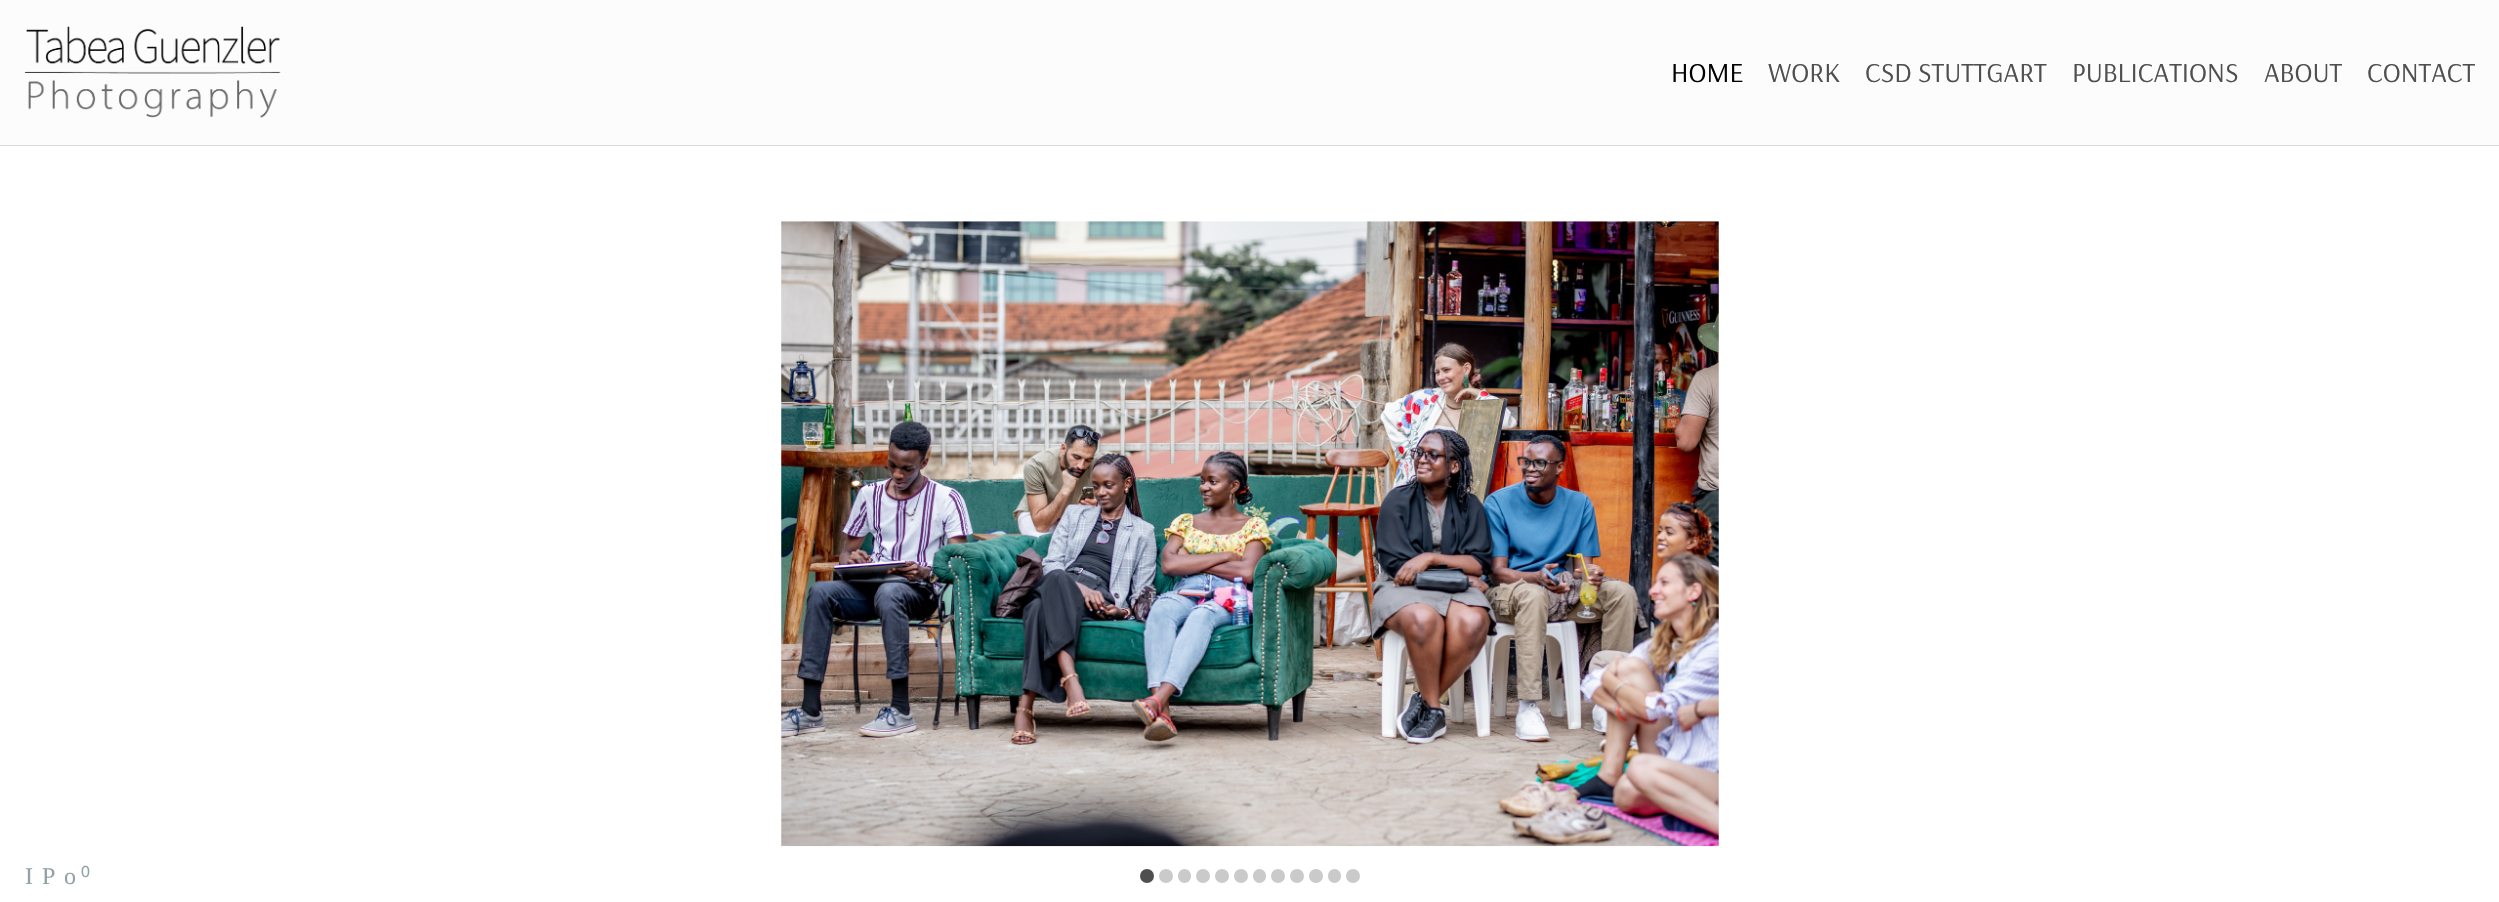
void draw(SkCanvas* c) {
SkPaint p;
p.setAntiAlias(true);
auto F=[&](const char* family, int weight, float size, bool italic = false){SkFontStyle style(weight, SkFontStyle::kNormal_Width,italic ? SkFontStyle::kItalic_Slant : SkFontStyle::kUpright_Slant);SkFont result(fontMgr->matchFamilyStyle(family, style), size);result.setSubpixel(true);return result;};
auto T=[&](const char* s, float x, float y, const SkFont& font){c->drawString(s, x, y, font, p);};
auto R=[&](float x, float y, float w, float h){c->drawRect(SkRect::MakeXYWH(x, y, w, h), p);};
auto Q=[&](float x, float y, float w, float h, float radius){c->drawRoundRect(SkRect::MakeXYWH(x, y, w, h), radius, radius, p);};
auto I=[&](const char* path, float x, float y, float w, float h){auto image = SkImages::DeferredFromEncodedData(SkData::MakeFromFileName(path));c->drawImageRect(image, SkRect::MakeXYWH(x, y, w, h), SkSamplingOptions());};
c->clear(0xffffffff);
p.setColor(0xfffcfcfc);
R(0,0,2499,145);
p.setColor(0xffd9d9d9);
R(0,145,2499,1);
I("1.png",25,26,256,92);
auto f1 = F("Arsenal",400,27.5);
p.setColor(0xff000000);
T("HOME",1671,82,f1);
p.setColor(0xff4f4f4f);
T("WORK",1768,82,f1);
T("CSD STUTTGART",1865,82,f1);
T("PUBLICATIONS",2072,82,f1);
T("ABOUT",2264,82,f1);
T("CONTACT",2367,82,f1);
auto f2 = F("Liberation Serif",400,24);
p.setColor(0xff91a1a6);
T("I",25,884,f2);
T("P",42,884,f2);
T("o",64,884,f2);
auto f3 = F("Liberation Sans",400,16);
T("0",81,877,f3);
I("2.png",781,221,938,626);
p.setColor(0xff4f4f4f);
c->drawCircle(1147,876,7,p);
p.setColor(0xffcacaca);
c->drawCircle(1166,876,7,p);
Q(1178,869,13,14,6.5);
c->drawCircle(1203,876,7,p);
c->drawCircle(1222,876,7,p);
c->drawCircle(1241,876,7,p);
Q(1253,869,13,14,6.5);
c->drawCircle(1278,876,7,p);
c->drawCircle(1297,876,7,p);
c->drawCircle(1316,876,7,p);
Q(1328,869,13,14,6.5);
c->drawCircle(1353,876,7,p);
}
